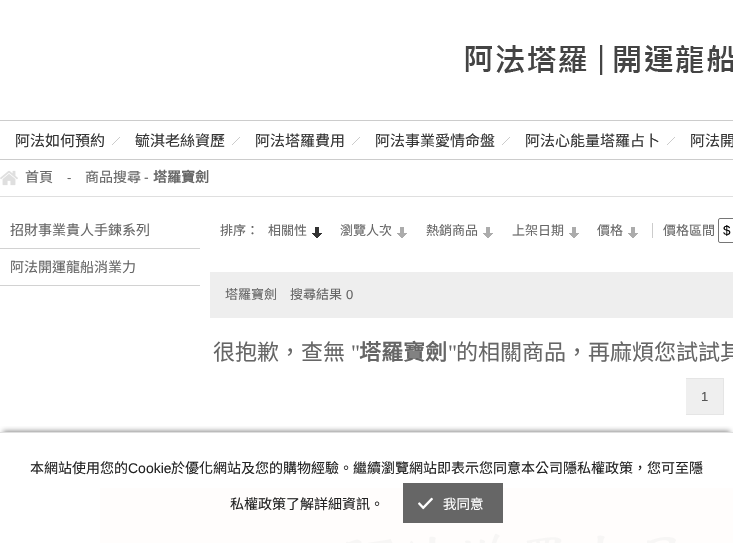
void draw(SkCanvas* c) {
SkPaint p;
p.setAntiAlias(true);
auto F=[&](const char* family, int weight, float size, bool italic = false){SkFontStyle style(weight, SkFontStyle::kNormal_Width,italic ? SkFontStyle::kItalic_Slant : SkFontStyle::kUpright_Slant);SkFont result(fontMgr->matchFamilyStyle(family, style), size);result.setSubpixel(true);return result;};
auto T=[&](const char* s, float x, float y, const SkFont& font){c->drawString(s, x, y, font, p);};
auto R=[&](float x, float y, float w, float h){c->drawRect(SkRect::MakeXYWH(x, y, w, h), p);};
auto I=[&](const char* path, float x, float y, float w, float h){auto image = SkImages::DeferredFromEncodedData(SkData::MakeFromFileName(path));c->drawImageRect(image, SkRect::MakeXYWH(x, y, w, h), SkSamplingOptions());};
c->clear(0xffffffff);
I("1.png",465,45,268,30);
p.setColor(0xffcccccc);
R(0,120,733,1);
R(0,159,733,1);
I("2.png",112,137,8,8);
auto f1 = F("Noto Sans CJK TC",400,15);
p.setColor(0xff333333);
T("阿法如何預約",15,146,f1);
I("2.png",232,137,8,8);
T("毓淇老絲資歷",135,146,f1);
I("2.png",352,137,8,8);
T("阿法塔羅費用",255,146,f1);
I("2.png",502,137,8,8);
T("阿法事業愛情命盤",375,146,f1);
I("2.png",667,137,8,8);
T("阿法心能量塔羅占卜",525,146,f1);
T("阿法開",690,146,f1);
p.setColor(0xffdfdfdf);
R(0,196,733,1);
I("3.png",0,170,18,16);
auto f2 = F("Noto Sans CJK TC",400,14);
p.setColor(0xff666666);
T("首頁",25,182,f2);
auto f3 = F("Liberation Sans",400,13);
T("-",67,182,f3);
T("商品搜尋",85,182,f2);
auto f4 = F("Liberation Sans",400,14);
T("-",144,182,f4);
auto f5 = F("Noto Sans CJK TC",700,14);
T("塔羅寶劍",153,182,f5);
p.setColor(0xffd2d2d2);
R(0,248,200,1);
p.setColor(0xff666666);
T("招財事業貴人手鍊系列",10,235,f2);
p.setColor(0xffd2d2d2);
R(0,285,200,1);
p.setColor(0xff666666);
T("阿法開運龍船消業力",10,272,f2);
auto f6 = F("Noto Sans CJK TC",400,13);
T("排序：",220,235,f6);
T("相關性",268,235,f6);
I("4.png",312,227,10,11);
T("瀏覽人次",340,235,f6);
I("5.png",397,227,10,11);
T("熱銷商品",426,235,f6);
I("5.png",483,227,10,11);
T("上架日期",512,235,f6);
I("5.png",569,227,10,11);
T("價格",597,235,f6);
I("5.png",628,227,10,11);
T("價格區間",663,235,f6);
p.setColor(0xffcccccc);
R(652,223,1,15);
p.setStroke(true);
p.setStrokeWidth(1);
p.setColor(0xff767676);
c->drawRoundRect(SkRect::MakeXYWH(718.5,218.5,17,24),1.5,1.5,p);
auto f7 = F("Liberation Sans",400,13.5);
p.setStroke(false);
p.setColor(0xff000000);
T("$",723,235,f7);
p.setColor(0xffeeeeee);
R(210,272,523,46);
p.setColor(0xff666666);
T("塔羅寶劍",225,299,f6);
T("搜尋結果",290,299,f6);
T("0",346,299,f3);
auto f8 = F("Noto Sans CJK TC",400,22);
T("很抱歉，查無",213,360,f8);
auto f9 = F("Liberation Serif",400,22);
T("\"",351,360,f9);
auto f10 = F("Noto Sans CJK TC",700,22);
T("塔羅寶劍",359,360,f10);
T("\"",448,360,f9);
T("的相關商品，再麻煩您試試其",456,360,f8);
p.setColor(0xffefefef);
R(686,379,37,35);
p.setColor(0xffe5e5e5);
R(686,378,38,1);
R(723,378,1,37);
R(686,414,38,1);
p.setColor(0xff555555);
T("1",701,401,f3);
I("6.png",100,488,633,55);
c->save();
c->clipRect(SkRect::MakeXYWH(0,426,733,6));
p.setColor(0xff8a8a8a);
p.setMaskFilter(SkMaskFilter::MakeBlur(kNormal_SkBlurStyle, 2.5));
c->drawRect(SkRect::MakeXYWH(3,431,727,105),p);
p.setMaskFilter(nullptr);
c->restore();
p.setColor(0xffdfdfdf);
R(0,432,733,1);
p.setColor(0xff222222);
T("本網站使用您的",30,473,f2);
T("Cookie",128,473,f4);
T("於優化網站及您的購物經驗。繼續瀏覽網站即表示您同意本公司隱私權政策，您可至隱",171,473,f2);
T("私權政策了解詳細資訊。",230,509,f2);
p.setColor(0xff666666);
R(403,483,100,40);
I("7.png",418,497,15,13);
auto f11 = F("Noto Sans CJK TC",400,13.5);
p.setColor(0xffffffff);
T("我同意",443,509,f11);
}
